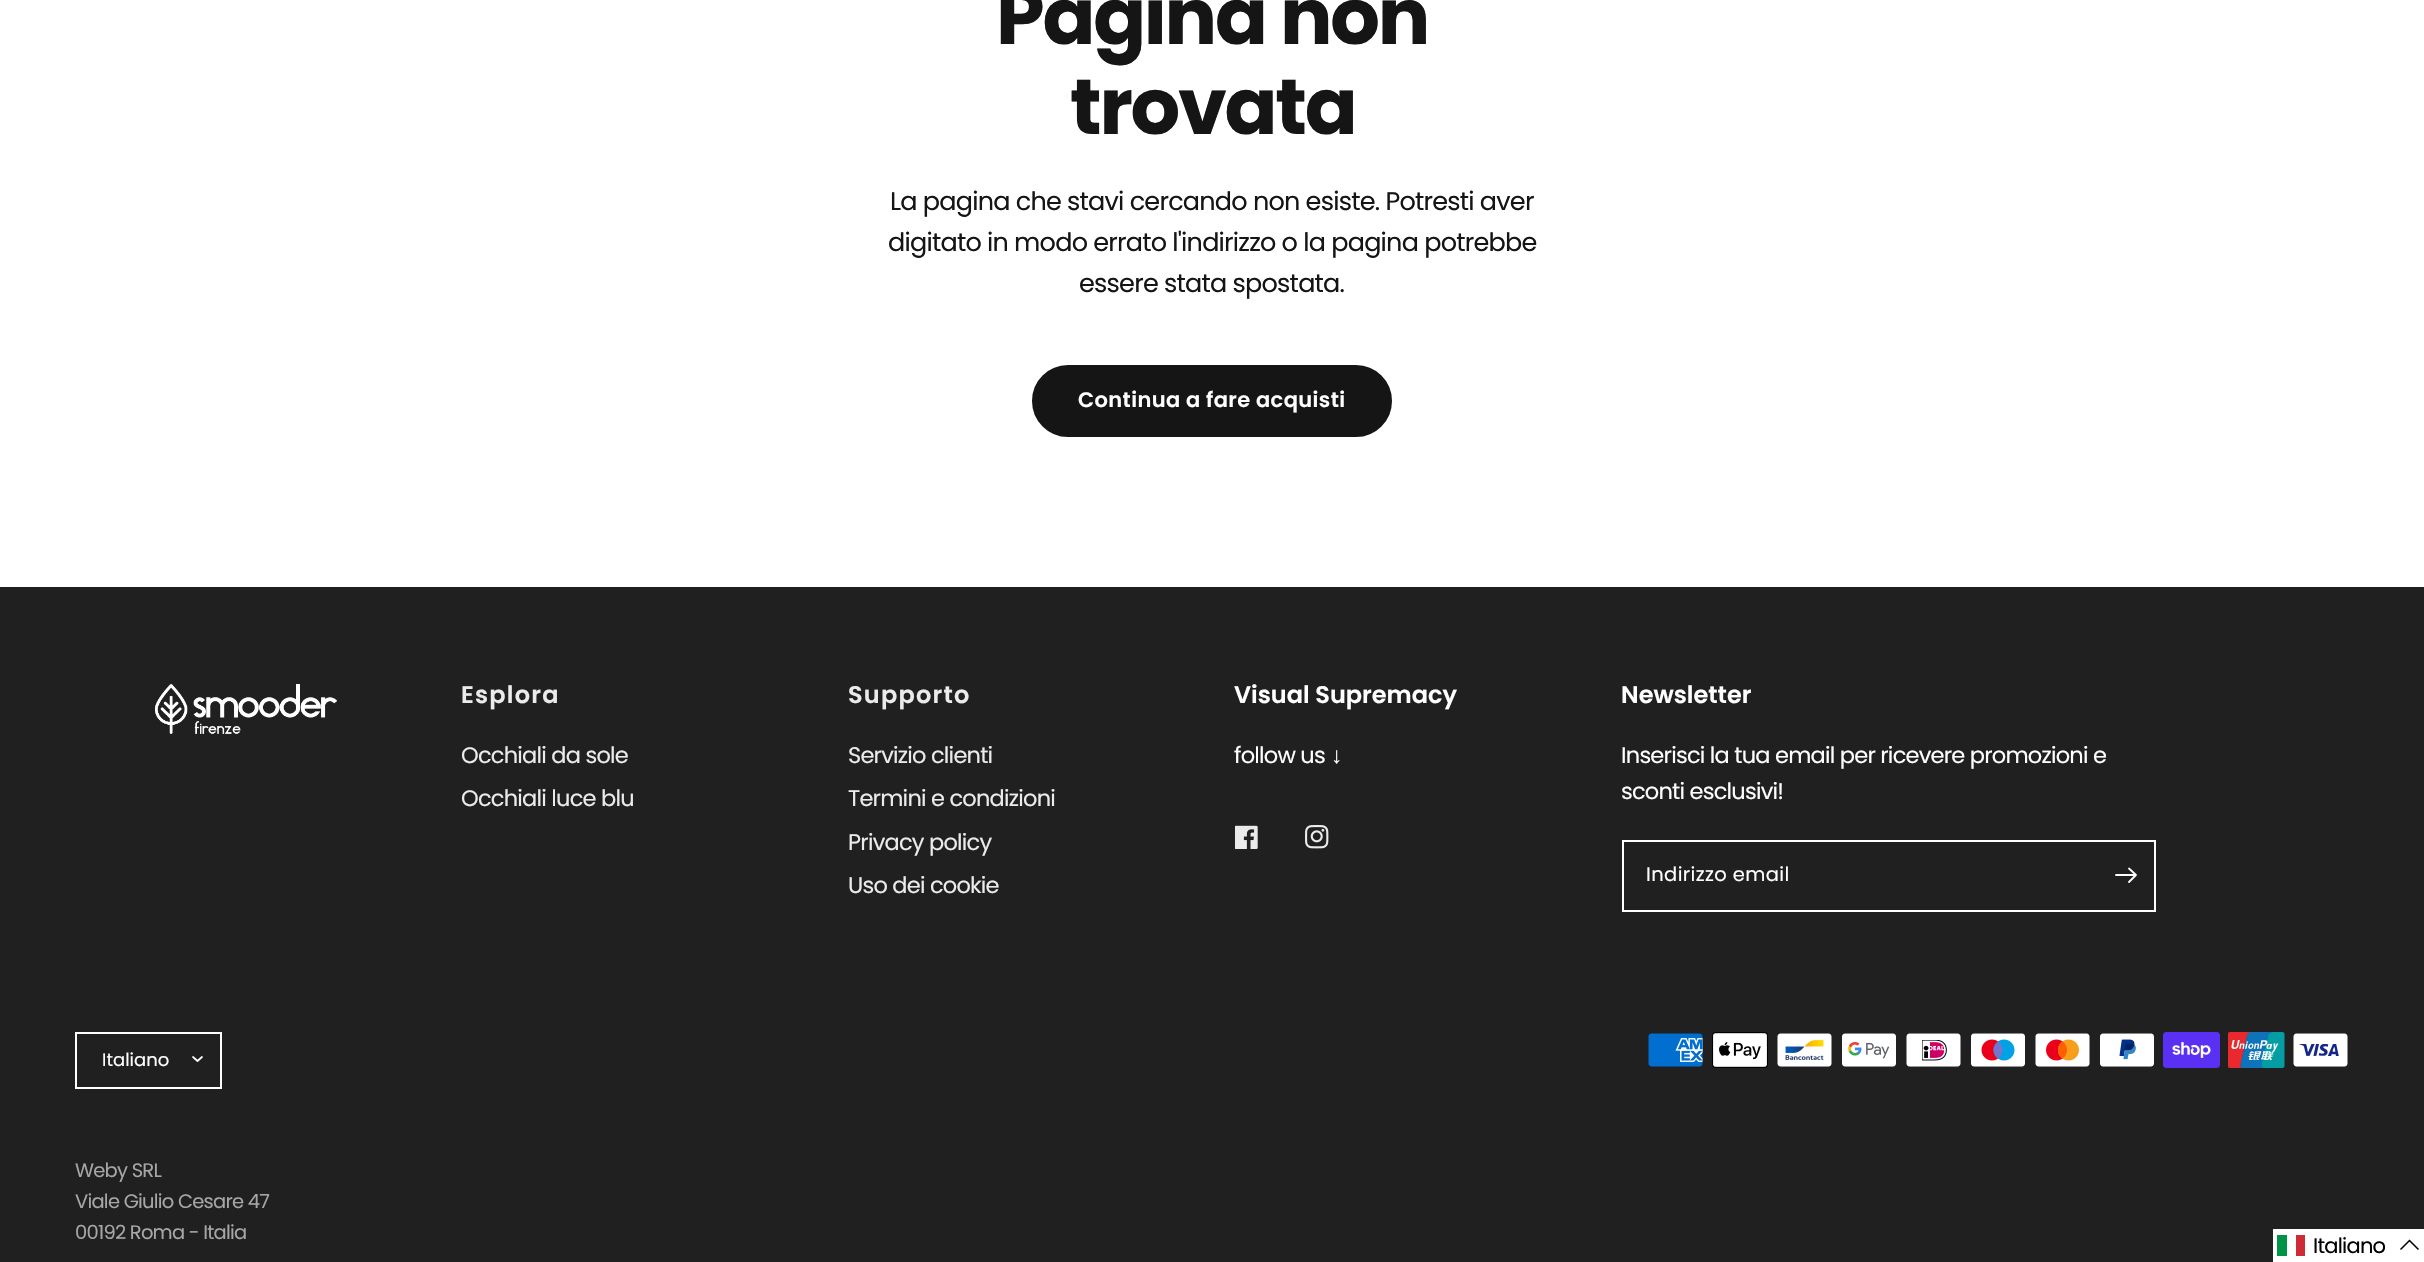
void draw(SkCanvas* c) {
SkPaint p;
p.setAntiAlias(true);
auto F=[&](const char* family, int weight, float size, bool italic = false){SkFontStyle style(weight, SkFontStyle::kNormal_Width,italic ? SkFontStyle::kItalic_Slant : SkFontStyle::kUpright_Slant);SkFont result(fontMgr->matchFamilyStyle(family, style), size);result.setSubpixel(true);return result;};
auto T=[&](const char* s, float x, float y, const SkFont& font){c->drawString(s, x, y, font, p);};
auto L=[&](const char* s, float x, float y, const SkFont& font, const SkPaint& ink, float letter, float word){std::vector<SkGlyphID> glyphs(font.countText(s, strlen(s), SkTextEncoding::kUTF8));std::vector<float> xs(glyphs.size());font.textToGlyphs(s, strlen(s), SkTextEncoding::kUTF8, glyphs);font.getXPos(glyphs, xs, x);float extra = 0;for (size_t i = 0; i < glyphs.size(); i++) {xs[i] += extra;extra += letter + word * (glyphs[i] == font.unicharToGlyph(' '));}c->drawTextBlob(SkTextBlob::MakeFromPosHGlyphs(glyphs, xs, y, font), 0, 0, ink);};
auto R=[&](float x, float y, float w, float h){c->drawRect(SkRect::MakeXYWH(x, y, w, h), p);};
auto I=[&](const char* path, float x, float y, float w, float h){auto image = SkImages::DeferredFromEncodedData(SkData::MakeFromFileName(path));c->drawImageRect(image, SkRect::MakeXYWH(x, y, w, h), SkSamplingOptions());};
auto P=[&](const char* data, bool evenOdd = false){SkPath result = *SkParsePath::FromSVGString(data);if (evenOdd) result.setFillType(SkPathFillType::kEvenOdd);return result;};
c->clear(0xffffffff);
auto f1 = F("Poppins",700,78);
p.setColor(0xff151515);
L("Pagina non",996,44,f1,p,-2.25,0);
L("trovata",1070,134,f1,p,-2.25,0);
auto f2 = F("Poppins",400,25.5);
L("La pagina che stavi cercando non esiste. Potresti aver",890,210,f2,p,-.77,0);
L("digitato in modo errato l'indirizzo o la pagina potrebbe",888,251,f2,p,-.77,0);
L("essere stata spostata.",1079,292,f2,p,-.77,0);
c->drawRoundRect(SkRect::MakeXYWH(1033,366,358,70),35,35,p);
p.setStroke(true);
p.setStrokeWidth(2);
c->drawRoundRect(SkRect::MakeXYWH(1033,366,358,70),35,35,p);
auto f3 = F("Poppins",600,21);
p.setStroke(false);
p.setColor(0xffffffff);
L("Continua a fare acquisti",1078,407,f3,p,.4,0);
p.setColor(0xff202020);
R(0,587,2424,675);
I("1.png",155,684,182,50);
auto f4 = F("Poppins",600,24);
p.setColor(0xffebebeb);
L("Esplora",461,703,f4,p,1.25,0);
auto f5 = F("Poppins",400,22.5);
L("Occhiali da sole",461,763,f5,p,-.77,0);
L("Occhiali luce blu",461,806,f5,p,-.77,0);
L("Supporto",848,703,f4,p,1.25,0);
L("Servizio clienti",848,763,f5,p,-.77,0);
L("Termini e condizioni",848,806,f5,p,-.77,0);
L("Privacy policy",848,850,f5,p,-.77,0);
L("Uso dei cookie",848,893,f5,p,-.77,0);
p.setColor(0xffffffff);
T("Visual Supremacy",1234,703,f4);
L("follow us",1234,763,f5,p,-.77,0);
auto f6 = F("Liberation Serif",400,22.5);
L("↓",1331,763,f6,p,-.77,0);
I("2.png",1235,825,23,24);
I("3.png",1305,825,24,24);
T("Newsletter",1621,703,f4);
L("Inserisci la tua email per ricevere promozioni e",1621,763,f5,p,-.77,0);
L("sconti esclusivi!",1621,799,f5,p,-.77,0);
p.setStroke(true);
c->drawRect(SkRect::MakeXYWH(1623,841,532,70),p);
auto f7 = F("Poppins",400,19.5);
p.setStroke(false);
L("Indirizzo email",1646,881,f7,p,.4,0);
p.setStroke(true);
p.setStrokeWidth(1.8);
p.setStrokeCap(SkPaint::kRound_Cap);
p.setStrokeJoin(SkPaint::kRound_Join);
c->drawPath(P("M2116 875h18m-5-6.5l7 6.5l-7 7"),p);
p.setStrokeWidth(2);
p.setStrokeCap(SkPaint::kButt_Cap);
p.setStrokeJoin(SkPaint::kMiter_Join);
c->drawRect(SkRect::MakeXYWH(76,1033,145,55),p);
auto f8 = F("Poppins",400,18);
p.setStroke(false);
T("Italiano",102,1066,f8);
p.setStroke(true);
p.setStrokeWidth(1.7);
p.setStrokeCap(SkPaint::kRound_Cap);
p.setStrokeJoin(SkPaint::kRound_Join);
c->drawPath(P("M202 1057l-4.5 4l-4.5-4"),p);
I("4.png",1648,1033,55,34);
I("5.png",1712,1032,56,36);
I("6.png",1777,1033,55,34);
I("7.png",1842,1033,54,34);
I("8.png",1906,1033,55,34);
I("9.png",1971,1033,54,34);
I("10.png",2035,1033,55,34);
I("11.png",2100,1033,54,34);
I("12.png",2163,1032,57,36);
I("13.png",2228,1032,57,36);
I("14.png",2293,1033,55,34);
p.setStroke(false);
p.setColor(0xffa6a6a6);
L("Weby SRL",75,1177,f7,p,-.77,0);
L("Viale Giulio Cesare 47",75,1208,f7,p,-.77,0);
L("00192 Roma - Italia",75,1239,f7,p,-.77,0);
p.setColor(0xffffffff);
R(2273,1229,151,33);
p.setColor(0xff009246);
R(2277,1235,10,21);
p.setColor(0xffce2b37);
R(2296,1235,9,21);
auto f9 = F("Poppins",400,21);
p.setColor(0xff000000);
L("Italiano",2313,1253,f9,p,-.77,0);
p.setStroke(true);
p.setStrokeWidth(1.5);
p.setStrokeCap(SkPaint::kButt_Cap);
p.setStrokeJoin(SkPaint::kMiter_Join);
c->drawPath(P("M2418.5 1249.5l-9-9l-9 9"),p);
}
